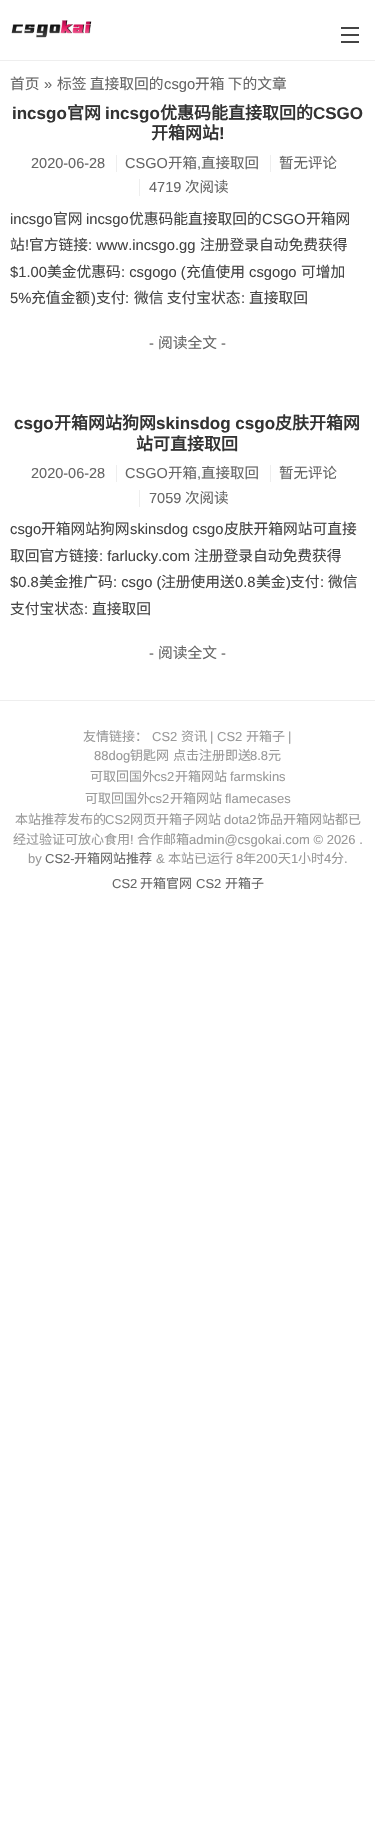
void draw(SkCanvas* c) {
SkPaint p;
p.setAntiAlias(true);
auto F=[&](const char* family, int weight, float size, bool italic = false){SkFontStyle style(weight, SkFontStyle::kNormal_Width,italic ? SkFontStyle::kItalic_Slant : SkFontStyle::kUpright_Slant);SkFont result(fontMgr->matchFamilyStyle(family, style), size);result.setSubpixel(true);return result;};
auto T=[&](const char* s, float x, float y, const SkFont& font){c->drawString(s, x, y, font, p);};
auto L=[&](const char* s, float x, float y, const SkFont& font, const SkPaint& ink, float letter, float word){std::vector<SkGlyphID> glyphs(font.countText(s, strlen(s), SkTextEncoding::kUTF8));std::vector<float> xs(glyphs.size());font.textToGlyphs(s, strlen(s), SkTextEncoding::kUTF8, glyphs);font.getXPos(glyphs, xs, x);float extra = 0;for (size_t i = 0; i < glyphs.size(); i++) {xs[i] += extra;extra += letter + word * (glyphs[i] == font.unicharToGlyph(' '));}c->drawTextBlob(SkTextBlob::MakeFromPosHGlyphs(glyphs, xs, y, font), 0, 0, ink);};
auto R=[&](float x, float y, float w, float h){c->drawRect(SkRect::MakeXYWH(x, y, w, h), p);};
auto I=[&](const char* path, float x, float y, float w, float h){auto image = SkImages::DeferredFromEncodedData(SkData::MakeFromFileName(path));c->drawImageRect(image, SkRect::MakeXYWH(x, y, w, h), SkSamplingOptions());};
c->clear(0xffffffff);
p.setColor(0xffeeeeee);
R(0,60,375,1);
I("1.png",11,20,81,18);
p.setColor(0xff444444);
R(341,27,18,2);
R(341,34,18,2);
R(341,41,18,2);
auto f1 = F("Noto Sans CJK SC",400,14.75);
p.setColor(0xff666666);
T("首页",10,89,f1);
auto f2 = F("Liberation Sans",400,14.75);
T("»",44,89,f2);
T("标签 直接取回的",57,89,f1);
T("csgo",164,89,f2);
T("开箱 下的文章",195,89,f1);
auto f3 = F("Liberation Sans",700,17);
p.setColor(0xff333333);
T("incsgo",12,119,f3);
auto f4 = F("Noto Sans CJK SC",700,17);
T("官网",67,119,f4);
T("incsgo",105,119,f3);
T("优惠码能直接取回的",160,119,f4);
T("CSGO",313,119,f3);
T("开箱网站",151,139,f4);
T("!",219,139,f3);
auto f5 = F("Liberation Sans",400,14.5);
p.setColor(0xff666666);
T("2020-06-28",31,168,f5);
p.setColor(0xffeeeeee);
R(116,155,1,17);
p.setColor(0xff666666);
T("CSGO",125,168,f5);
auto f6 = F("Noto Sans CJK SC",400,14.5);
T("开箱",168,168,f6);
T(",",197,168,f5);
T("直接取回",201,168,f6);
p.setColor(0xffeeeeee);
R(270,155,1,17);
p.setColor(0xff666666);
T("暂无评论",279,168,f6);
p.setColor(0xffeeeeee);
R(139,179,1,17);
p.setColor(0xff666666);
T("4719",149,192,f5);
T("次阅读",185,192,f6);
p.setColor(0xff444444);
T("incsgo",10,224,f2);
T("官网",53,224,f1);
T("incsgo",86,224,f2);
T("优惠码能直接取回的",129,224,f1);
T("CSGO",262,224,f2);
T("开箱网",306,224,f1);
T("站",10,250,f1);
T("!",25,250,f2);
T("官方链接",29,250,f1);
T(": www.incsgo.gg",88,250,f2);
T("注册登录自动免费获得",200,250,f1);
T("$1.00",10,277,f2);
T("美金优惠码",47,277,f1);
T(": csgogo (",121,277,f2);
T("充值使用",186,277,f1);
T("csgogo",249,277,f2);
T("可增加",301,277,f1);
T("5%",10,303,f2);
T("充值金额",31,303,f1);
T(")",91,303,f2);
T("支付",96,303,f1);
T(":",125,303,f2);
T("微信 支付宝状态",134,303,f1);
T(":",241,303,f2);
T("直接取回",249,303,f1);
p.setColor(0xff666666);
T("-",149,348,f2);
T("阅读全文",158,348,f1);
T("-",221,348,f2);
p.setColor(0xff333333);
T("csgo",14,429,f3);
T("开箱网站狗网",54,429,f4);
T("skinsdog csgo",156,429,f3);
T("皮肤开箱网",275,429,f4);
T("站可直接取回",136,450,f4);
p.setColor(0xff666666);
T("2020-06-28",31,478,f5);
p.setColor(0xffeeeeee);
R(116,465,1,17);
p.setColor(0xff666666);
T("CSGO",125,478,f5);
T("开箱",168,478,f6);
T(",",197,478,f5);
T("直接取回",201,478,f6);
p.setColor(0xffeeeeee);
R(270,465,1,17);
p.setColor(0xff666666);
T("暂无评论",279,478,f6);
p.setColor(0xffeeeeee);
R(139,490,1,17);
p.setColor(0xff666666);
T("7059",149,503,f5);
T("次阅读",185,503,f6);
p.setColor(0xff444444);
T("csgo",10,534,f2);
T("开箱网站狗网",41,534,f1);
T("skinsdog csgo",130,534,f2);
T("皮肤开箱网站可直接",224,534,f1);
T("取回官方链接",10,561,f1);
T(": farlucky.com",99,561,f2);
T("注册登录自动免费获得",194,561,f1);
T("$0.8",10,587,f2);
T("美金推广码",39,587,f1);
T(": csgo (",113,587,f2);
T("注册使用送",161,587,f1);
T("0.8",235,587,f2);
T("美金",256,587,f1);
T(")",286,587,f2);
T("支付",290,587,f1);
T(":",320,587,f2);
T("微信",328,587,f1);
T("支付宝状态",10,614,f1);
T(":",84,614,f2);
T("直接取回",92,614,f1);
p.setColor(0xff666666);
T("-",149,658,f2);
T("阅读全文",158,658,f1);
T("-",221,658,f2);
p.setColor(0xffeeeeee);
R(0,700,375,1);
auto f7 = F("Noto Sans CJK SC",400,13);
p.setColor(0xff999999);
T("友情链接：",83,741,f7);
auto f8 = F("Liberation Sans",400,13);
T("CS2",152,741,f8);
T("资讯",181,741,f7);
T("| CS2",210,741,f8);
T("开箱子",246,741,f7);
T("|",288,741,f8);
T("88dog",94,760,f8);
L("钥匙网 点击注册即送",130,760,f7,p,0,1);
T("8.8",250,760,f8);
T("元",268,760,f7);
T("可取回国外",90,781,f7);
T("cs2",154,781,f8);
T("开箱网站",175,781,f7);
T("farmskins",230,781,f8);
T("可取回国外",85,803,f7);
T("cs2",149,803,f8);
T("开箱网站",170,803,f7);
T("flamecases",225,803,f8);
T("本站推荐发布的",15,824,f7);
T("CS2",105,824,f8);
T("网页开箱子网站",130,824,f7);
T("dota2",224,824,f8);
T("饰品开箱网站都已",257,824,f7);
T("经过验证可放心食用",13,844,f7);
T("!",130,844,f8);
T("合作邮箱",137,844,f7);
T("admin@csgokai.com © 2026 .",189,844,f8);
T("by",28,863,f8);
p.setColor(0xff666666);
T("CS2-",45,863,f8);
T("开箱网站推荐",74,863,f7);
p.setColor(0xff999999);
T("&",156,863,f8);
T("本站已运行",168,863,f7);
T("8",236,863,f8);
T("年",243,863,f7);
T("200",256,863,f8);
T("天",278,863,f7);
T("1",291,863,f8);
T("小时",298,863,f7);
T("4",324,863,f8);
T("分",331,863,f7);
T(".",344,863,f8);
p.setColor(0xff666666);
T("CS2",112,888,f8);
T("开箱官网",140,888,f7);
T("CS2",196,888,f8);
T("开箱子",225,888,f7);
}
